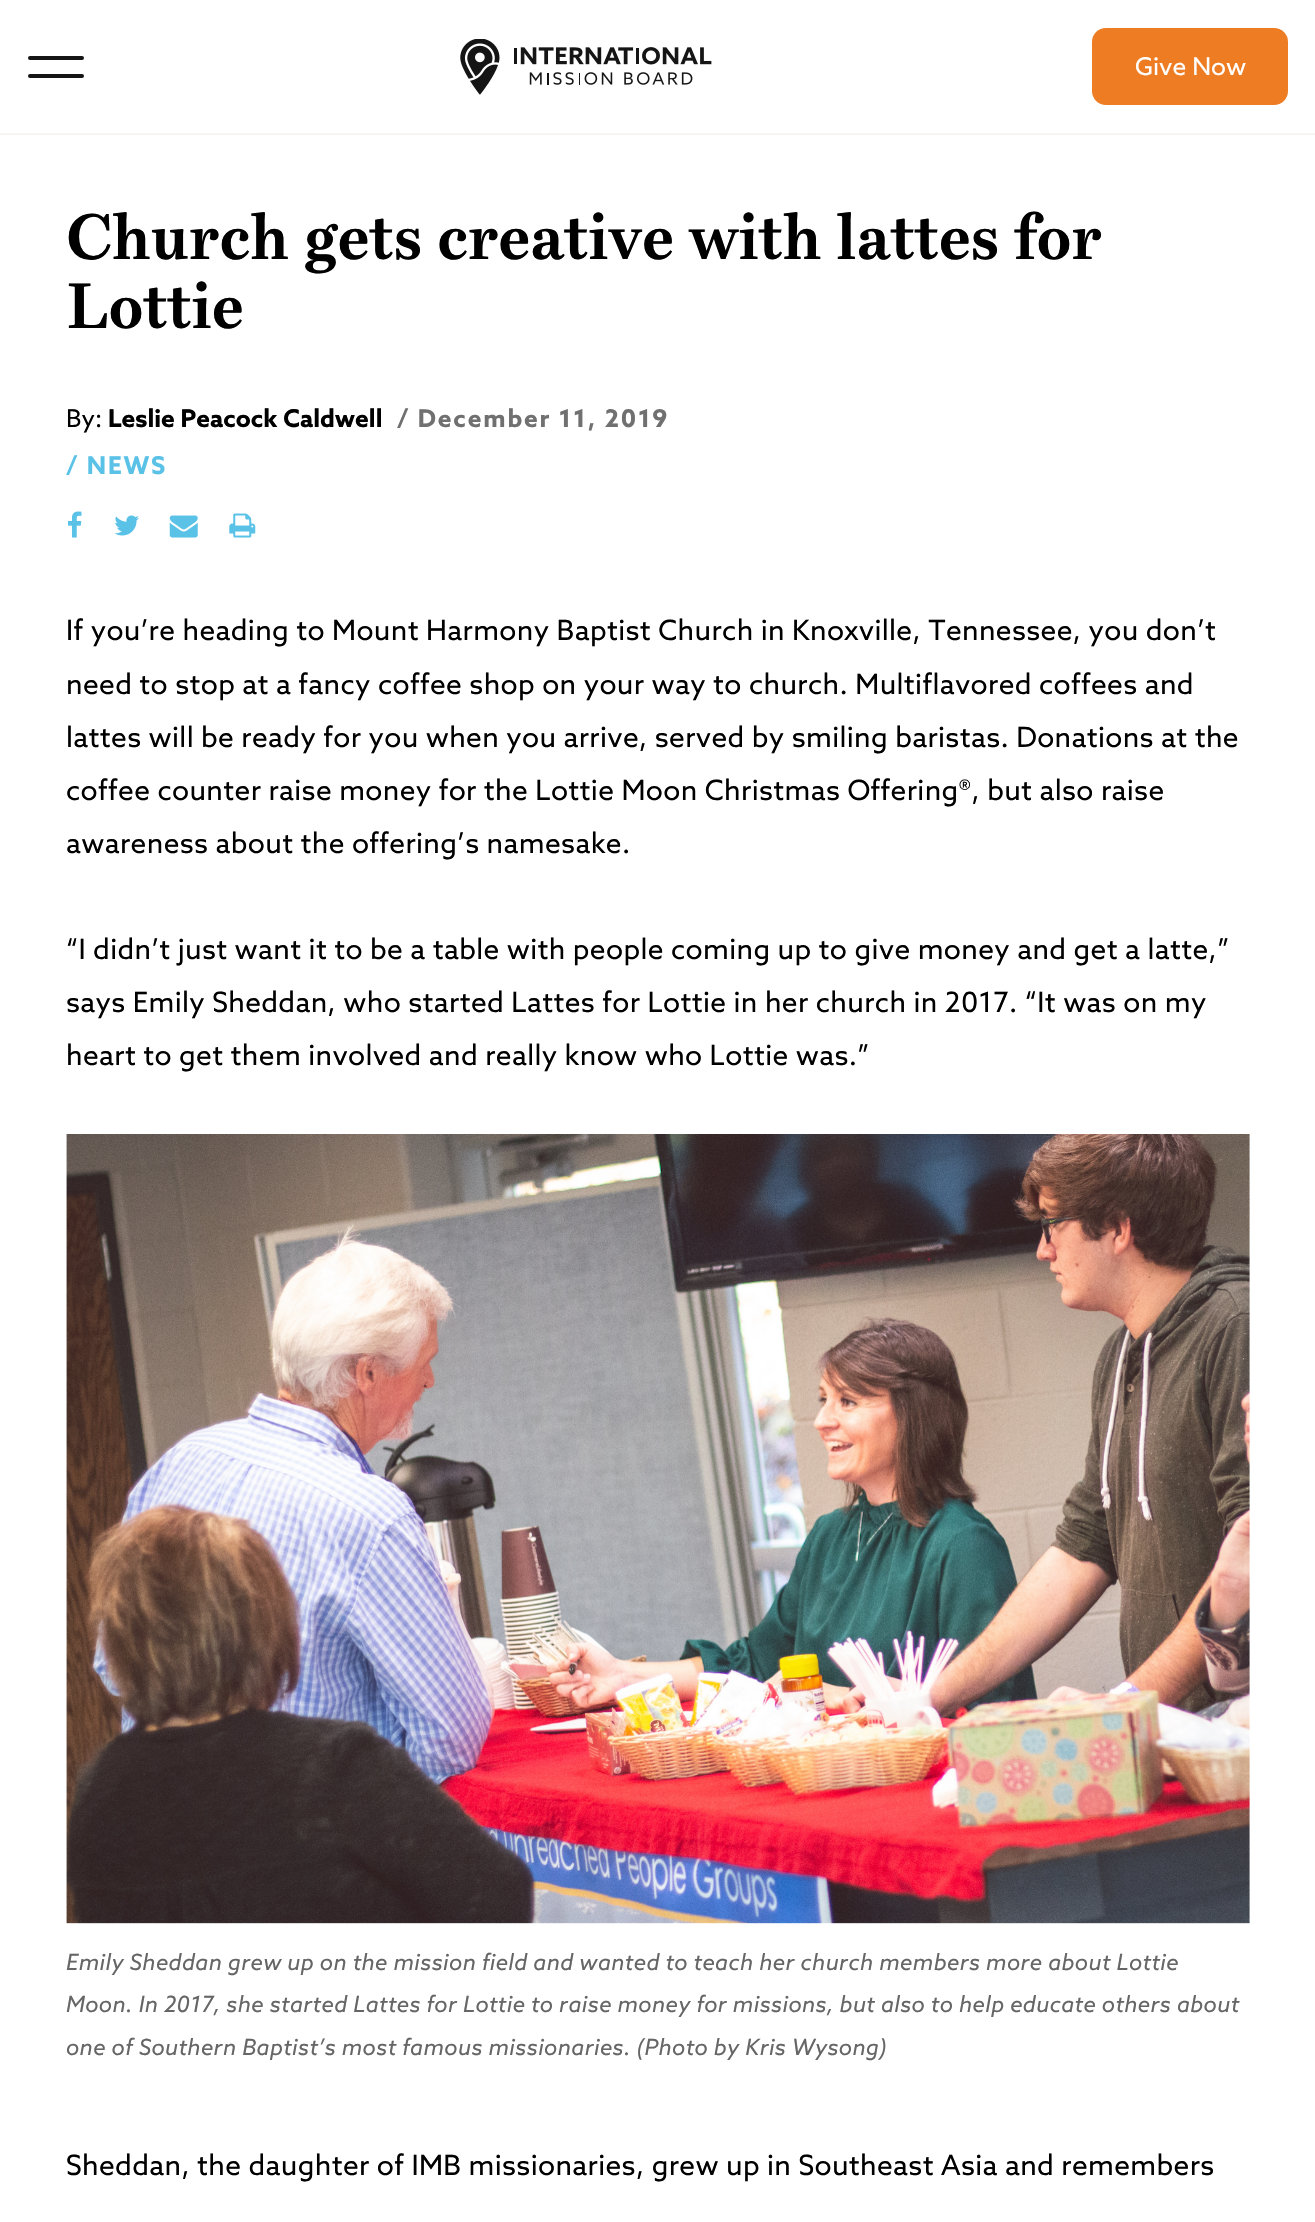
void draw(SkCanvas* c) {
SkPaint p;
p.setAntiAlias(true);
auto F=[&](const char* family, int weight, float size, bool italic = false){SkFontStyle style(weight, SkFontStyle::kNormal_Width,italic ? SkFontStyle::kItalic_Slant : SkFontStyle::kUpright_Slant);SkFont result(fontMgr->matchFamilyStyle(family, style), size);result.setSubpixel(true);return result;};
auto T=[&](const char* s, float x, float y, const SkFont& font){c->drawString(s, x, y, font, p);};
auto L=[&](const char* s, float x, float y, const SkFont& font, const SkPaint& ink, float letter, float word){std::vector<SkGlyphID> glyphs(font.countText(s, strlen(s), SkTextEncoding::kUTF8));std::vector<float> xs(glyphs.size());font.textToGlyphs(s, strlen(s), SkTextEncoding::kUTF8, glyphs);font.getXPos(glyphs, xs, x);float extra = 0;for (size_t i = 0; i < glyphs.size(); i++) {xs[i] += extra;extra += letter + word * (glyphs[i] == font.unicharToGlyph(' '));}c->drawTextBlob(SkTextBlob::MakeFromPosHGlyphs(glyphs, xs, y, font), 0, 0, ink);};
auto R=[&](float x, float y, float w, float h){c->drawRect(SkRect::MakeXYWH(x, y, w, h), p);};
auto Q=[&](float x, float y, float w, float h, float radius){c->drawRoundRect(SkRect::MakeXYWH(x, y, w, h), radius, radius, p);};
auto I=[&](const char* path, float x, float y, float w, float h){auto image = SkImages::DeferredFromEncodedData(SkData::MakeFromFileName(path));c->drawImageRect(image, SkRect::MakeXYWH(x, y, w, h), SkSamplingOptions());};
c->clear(0xffffffff);
p.setColor(0xfff8f5f0);
R(0,133,1315,2);
p.setColor(0xff151515);
Q(28,56,56,4,2);
Q(28,74,56,4,2);
I("1.png",460,39,252,56);
p.setColor(0xffee7c22);
Q(1092,28,196,77,14);
auto f1 = F("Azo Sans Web",400,24.5);
p.setColor(0xffffffff);
T("Give Now",1135,75,f1);
auto f2 = F("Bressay",700,63);
p.setColor(0xff000000);
T("Church gets creative with lattes for",66,259,f2);
T("Lottie",66,328,f2);
T("By:",66,427,f1);
auto f3 = F("Azo Sans Web",700,24.5);
T("Leslie Peacock Caldwell",108,427,f3);
p.setColor(0xff707070);
L("/ December 11, 2019",397,427,f3,p,1.8,0);
p.setColor(0xff5bc2e7);
L("/ NEWS",66,474,f3,p,1.8,0);
I("2.png",68,511,14,27);
I("3.png",114,515,25,21);
I("4.png",169,515,29,23);
I("5.png",229,513,27,25);
auto f4 = F("Azo Sans Web",400,28);
p.setColor(0xff000000);
L("If you’re heading to Mount Harmony Baptist Church in Knoxville, Tennessee, you don’t",66,640,f4,p,.35,0);
L("need to stop at a fancy coffee shop on your way to church. Multiflavored coffees and",66,694,f4,p,.35,0);
L("lattes will be ready for you when you arrive, served by smiling baristas. Donations at the",66,747,f4,p,.35,0);
L("coffee counter raise money for the Lottie Moon Christmas Offering®, but also raise",66,800,f4,p,.35,0);
L("awareness about the offering’s namesake.",66,853,f4,p,.35,0);
L("“I didn’t just want it to be a table with people coming up to give money and get a latte,”",66,959,f4,p,.35,0);
L("says Emily Sheddan, who started Lattes for Lottie in her church in 2017. “It was on my",66,1012,f4,p,.35,0);
L("heart to get them involved and really know who Lottie was.”",66,1065,f4,p,.35,0);
I("6.png",66,1134,1184,790);
auto f5 = F("Azo Sans Web",400,22.4,true);
p.setColor(0xff666666);
L("Emily Sheddan grew up on the mission field and wanted to teach her church members more about Lottie",66,1970,f5,p,.35,0);
L("Moon. In 2017, she started Lattes for Lottie to raise money for missions, but also to help educate others about",66,2012,f5,p,.35,0);
L("one of Southern Baptist’s most famous missionaries. (Photo by Kris Wysong)",66,2055,f5,p,.35,0);
p.setColor(0xff000000);
L("Sheddan, the daughter of IMB missionaries, grew up in Southeast Asia and remembers",66,2175,f4,p,.35,0);
}
